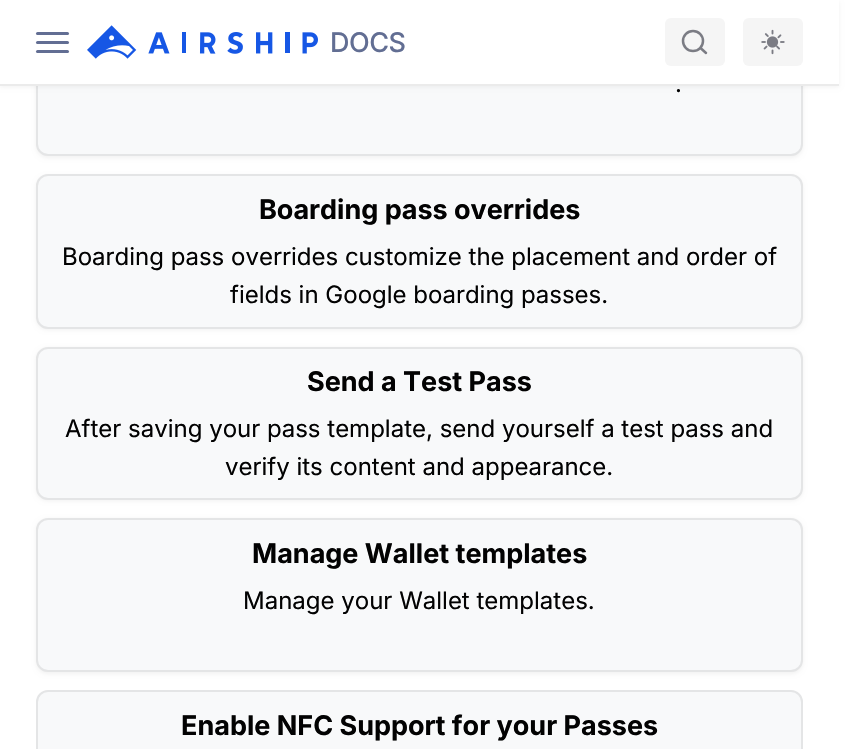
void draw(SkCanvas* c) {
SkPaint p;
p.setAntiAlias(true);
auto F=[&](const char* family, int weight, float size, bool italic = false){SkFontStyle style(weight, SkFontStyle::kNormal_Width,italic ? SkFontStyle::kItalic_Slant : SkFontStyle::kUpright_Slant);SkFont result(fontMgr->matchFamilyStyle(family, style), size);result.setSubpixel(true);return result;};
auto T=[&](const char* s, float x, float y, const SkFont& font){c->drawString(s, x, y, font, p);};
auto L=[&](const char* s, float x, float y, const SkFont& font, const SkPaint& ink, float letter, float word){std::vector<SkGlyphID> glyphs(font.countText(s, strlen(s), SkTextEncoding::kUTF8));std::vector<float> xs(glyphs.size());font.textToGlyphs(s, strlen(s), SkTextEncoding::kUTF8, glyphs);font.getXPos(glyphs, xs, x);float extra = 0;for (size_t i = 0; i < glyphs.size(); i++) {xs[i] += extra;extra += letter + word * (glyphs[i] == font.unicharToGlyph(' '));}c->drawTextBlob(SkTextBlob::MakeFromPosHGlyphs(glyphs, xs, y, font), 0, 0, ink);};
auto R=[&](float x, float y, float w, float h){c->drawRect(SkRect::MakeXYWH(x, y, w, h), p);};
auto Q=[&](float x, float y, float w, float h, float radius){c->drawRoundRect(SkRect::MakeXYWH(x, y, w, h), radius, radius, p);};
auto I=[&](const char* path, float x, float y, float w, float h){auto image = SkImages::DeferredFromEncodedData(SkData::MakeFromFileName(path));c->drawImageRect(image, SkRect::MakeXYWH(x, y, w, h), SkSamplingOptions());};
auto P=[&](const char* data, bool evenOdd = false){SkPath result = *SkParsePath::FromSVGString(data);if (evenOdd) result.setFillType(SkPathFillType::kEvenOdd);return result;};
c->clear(0xffffffff);
p.setColor(0x0d000000);
p.setMaskFilter(SkMaskFilter::MakeBlur(kNormal_SkBlurStyle, 2));
c->drawRoundRect(SkRect::MakeXYWH(36,3,767,155),12,12,p);
p.setMaskFilter(nullptr);
p.setColor(0xfff8f9fa);
Q(36,2,767,154,12);
p.setStroke(true);
p.setStrokeWidth(2);
p.setColor(0x14000000);
c->drawRoundRect(SkRect::MakeXYWH(37,3,765,152),11,11,p);
p.setStroke(false);
p.setColor(0x0d000000);
p.setMaskFilter(SkMaskFilter::MakeBlur(kNormal_SkBlurStyle, 2));
c->drawRect(SkRect::MakeXYWH(0,2,839,85),p);
p.setMaskFilter(nullptr);
p.setColor(0xffffffff);
R(0,0,839,84);
p.setColor(0xffebebeb);
R(0,84,839,2);
p.setColor(0xff626e93);
Q(36,32,33,3,1.5);
Q(36,41,33,3,1.5);
Q(36,50,33,3,1.5);
I("1.png",87,25,231,34);
auto f1 = F("Inter",500,27);
L("DOCS",330,52,f1,p,-.5,0);
p.setColor(0xfff5f5f5);
Q(665,18,60,48,6);
p.setStroke(true);
p.setStrokeWidth(2.5);
p.setColor(0xff7b7c84);
c->drawCircle(693,41,10,p);
p.setStrokeCap(SkPaint::kRound_Cap);
p.setStrokeJoin(SkPaint::kRound_Join);
c->drawPath(P("M706 53l-5.5-5"),p);
p.setStroke(false);
p.setColor(0xfff5f5f5);
Q(743,18,60,48,6);
I("2.png",761,29,24,26);
auto f2 = F("Inter",400,24);
p.setColor(0xff020202);
T(".",675,92,f2);
p.setColor(0x0d000000);
p.setMaskFilter(SkMaskFilter::MakeBlur(kNormal_SkBlurStyle, 2));
c->drawRoundRect(SkRect::MakeXYWH(36,176,767,154),12,12,p);
p.setMaskFilter(nullptr);
p.setColor(0xfff8f9fa);
Q(36,174,767,155,12);
p.setStroke(true);
p.setStrokeWidth(2);
p.setStrokeCap(SkPaint::kButt_Cap);
p.setStrokeJoin(SkPaint::kMiter_Join);
p.setColor(0x14000000);
c->drawRoundRect(SkRect::MakeXYWH(37,175,765,153),11,11,p);
auto f3 = F("Inter",700,27);
p.setStroke(false);
p.setColor(0xff020202);
T("Boarding pass overrides",259,219,f3);
T("Boarding pass overrides customize the placement and order of",62,265,f2);
T("fields in Google boarding passes.",230,303,f2);
p.setColor(0x0d000000);
p.setMaskFilter(SkMaskFilter::MakeBlur(kNormal_SkBlurStyle, 2));
c->drawRoundRect(SkRect::MakeXYWH(36,348,767,153),12,12,p);
p.setMaskFilter(nullptr);
p.setColor(0xfff8f9fa);
Q(36,347,767,153,12);
p.setStroke(true);
p.setColor(0x14000000);
c->drawRoundRect(SkRect::MakeXYWH(37,348,765,151),11,11,p);
p.setStroke(false);
p.setColor(0xff020202);
T("Send a Test Pass",307,391,f3);
T("After saving your pass template, send yourself a test pass and",65,437,f2);
T("verify its content and appearance.",225,475,f2);
p.setColor(0x0d000000);
p.setMaskFilter(SkMaskFilter::MakeBlur(kNormal_SkBlurStyle, 2));
c->drawRoundRect(SkRect::MakeXYWH(36,519,767,155),12,12,p);
p.setMaskFilter(nullptr);
p.setColor(0xfff8f9fa);
Q(36,518,767,154,12);
p.setStroke(true);
p.setColor(0x14000000);
c->drawRoundRect(SkRect::MakeXYWH(37,519,765,152),11,11,p);
p.setStroke(false);
p.setColor(0xff020202);
T("Manage Wallet templates",252,563,f3);
T("Manage your Wallet templates.",243,609,f2);
p.setColor(0xfff8f9fa);
c->drawRoundRect(SkRect::MakeXYWH(37,691,765,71),11,11,p);
p.setStroke(true);
p.setColor(0xffe4e5e6);
c->drawRoundRect(SkRect::MakeXYWH(37,691,765,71),11,11,p);
p.setStroke(false);
p.setColor(0xff020202);
T("Enable NFC Support for your Passes",181,735,f3);
}
